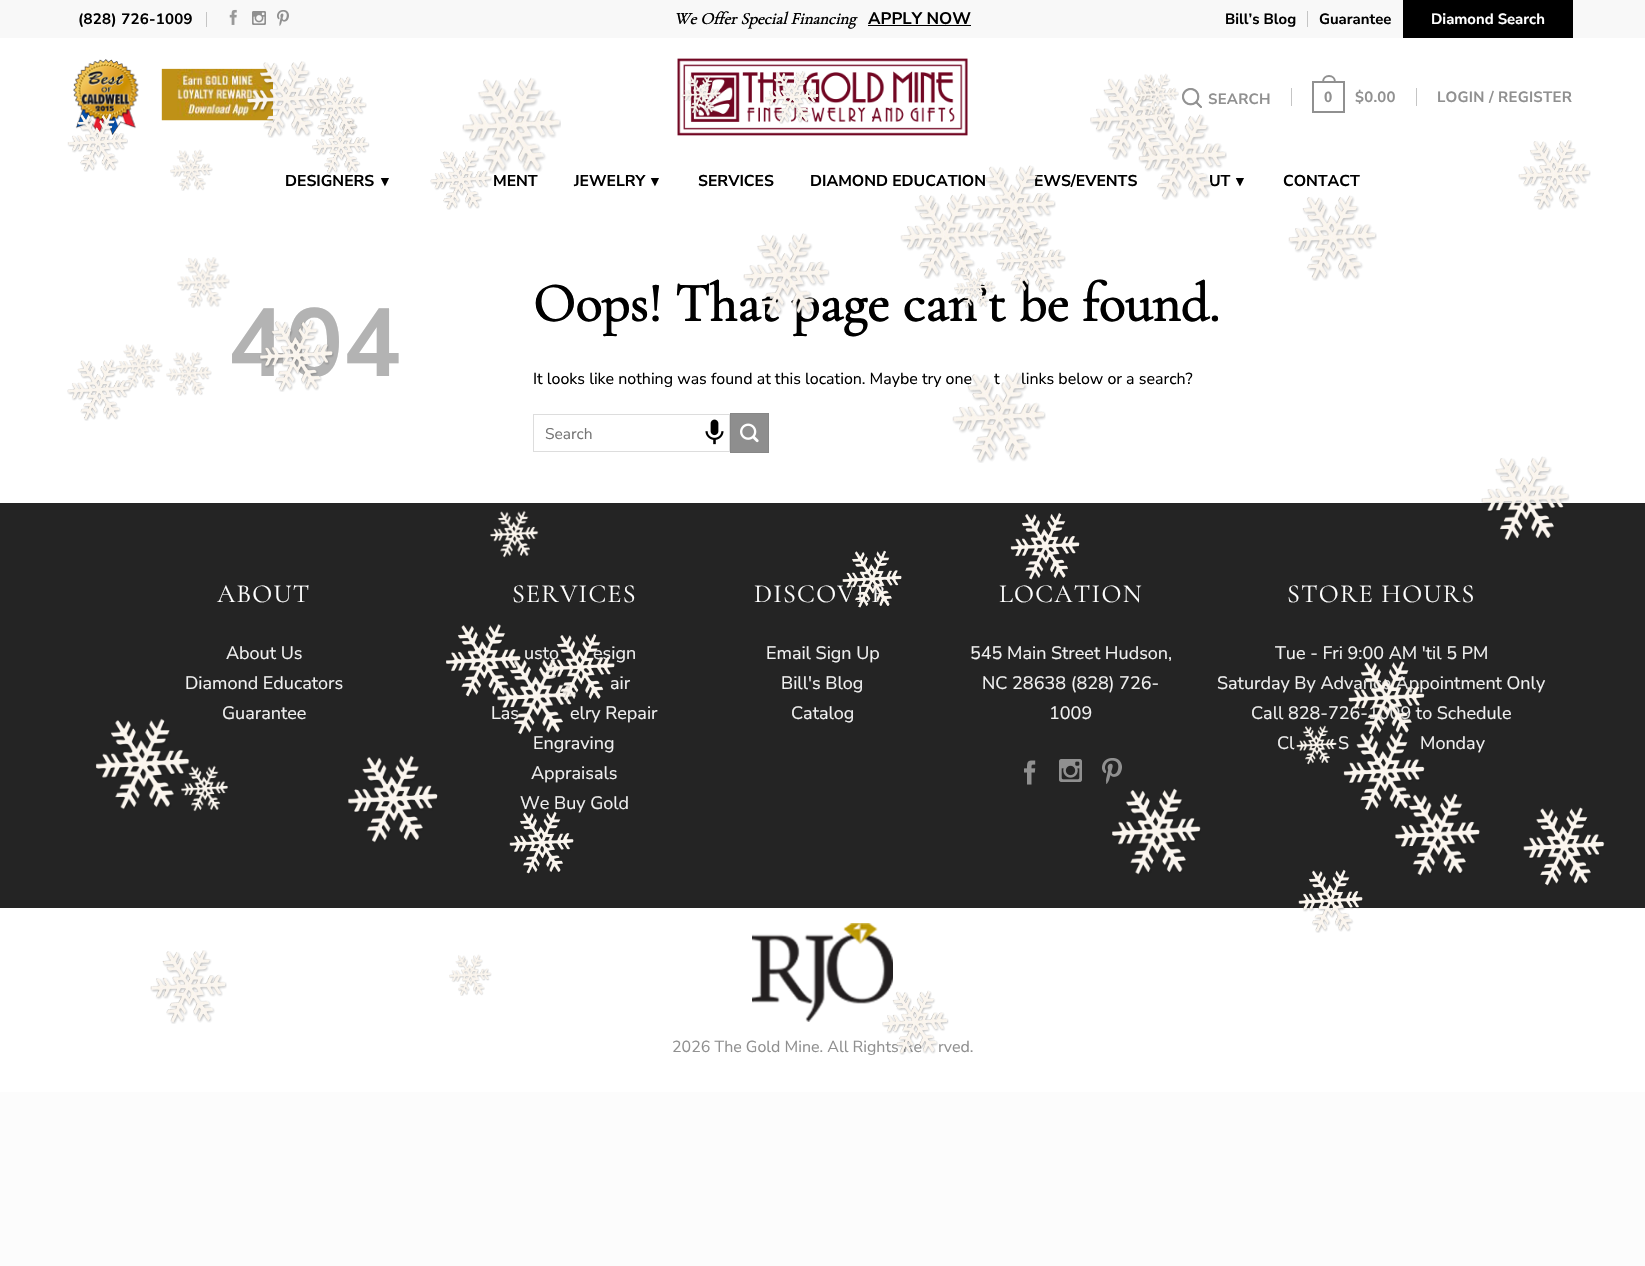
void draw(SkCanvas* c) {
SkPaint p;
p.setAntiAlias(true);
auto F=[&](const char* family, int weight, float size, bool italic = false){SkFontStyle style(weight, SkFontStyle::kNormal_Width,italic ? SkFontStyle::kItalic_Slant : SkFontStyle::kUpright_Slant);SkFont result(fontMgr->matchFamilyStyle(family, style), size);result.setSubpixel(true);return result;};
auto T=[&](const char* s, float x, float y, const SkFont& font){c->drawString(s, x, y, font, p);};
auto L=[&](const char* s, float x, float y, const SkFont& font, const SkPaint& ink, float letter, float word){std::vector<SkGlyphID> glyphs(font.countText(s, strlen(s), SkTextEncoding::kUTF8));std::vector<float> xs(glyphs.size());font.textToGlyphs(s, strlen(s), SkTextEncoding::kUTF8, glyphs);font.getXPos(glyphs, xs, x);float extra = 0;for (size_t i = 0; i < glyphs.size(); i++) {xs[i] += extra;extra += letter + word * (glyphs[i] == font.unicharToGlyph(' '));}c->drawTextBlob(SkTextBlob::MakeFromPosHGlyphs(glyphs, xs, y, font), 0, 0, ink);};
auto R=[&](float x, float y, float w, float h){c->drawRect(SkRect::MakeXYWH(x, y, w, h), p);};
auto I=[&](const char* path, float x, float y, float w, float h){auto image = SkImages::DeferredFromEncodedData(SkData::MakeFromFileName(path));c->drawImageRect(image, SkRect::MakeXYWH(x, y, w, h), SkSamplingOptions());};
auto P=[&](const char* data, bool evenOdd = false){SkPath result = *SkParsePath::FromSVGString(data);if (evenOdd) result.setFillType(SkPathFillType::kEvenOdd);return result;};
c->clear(0xfffcfcfc);
p.setColor(0xffffffff);
R(0,38,1645,1054);
p.setColor(0xfff8f8f8);
R(0,0,1645,38);
auto f1 = F("Nunito Sans",700,15);
p.setColor(0xff000000);
L("(828) 726-1009",78,24,f1,p,.25,0);
p.setColor(0xffc5c5c5);
R(206,12,1,15);
I("1.png",229,9,8,16);
I("2.png",252,11,14,14);
I("3.png",277,10,12,16);
auto f2 = F("Cormorant Garamond",700,16.75,true);
p.setColor(0xff000000);
T("We Offer Special Financing",674,24,f2);
auto f3 = F("Nunito Sans",700,16.75);
T("APPLY NOW",868,24,f3);
R(868,25,103,1);
p.setColor(0xffc5c5c5);
R(1307,11,1,16);
auto f4 = F("Nunito Sans",700,14.9);
p.setColor(0xff000000);
T("Bill’s Blog",1225,24,f4);
T("Guarantee",1319,24,f4);
R(1403,0,170,38);
p.setColor(0xffffffff);
T("Diamond Search",1431,24,f4);
I("4.png",73,59,200,76);
I("5.png",677,58,291,78);
I("6.png",1182,88,20,20);
p.setColor(0xff909090);
L("SEARCH",1208,104,f4,p,.25,0);
p.setColor(0xffc5c5c5);
R(1291,88,1,18);
p.setStroke(true);
p.setStrokeWidth(2);
p.setColor(0xff909090);
c->drawRect(SkRect::MakeXYWH(1313,82,31,30),p);
c->drawPath(P("M1329 76c3.5 0 6 2.5 6 6h-12c0-3.5 2.5-6 6-6z"),p);
auto f5 = F("Liberation Sans",700,14.9);
p.setStroke(false);
L("0",1324,102,f5,p,.25,0);
L("$0.00",1355,102,f4,p,.25,0);
p.setColor(0xffc5c5c5);
R(1416,88,1,18);
p.setColor(0xff909090);
L("LOGIN / REGISTER",1437,102,f4,p,.25,0);
auto f6 = F("Nunito Sans",700,15.75);
p.setColor(0xff000000);
T("DESIGNERS",285,186,f6);
auto f7 = F("Liberation Serif",400,14);
T("▼",378,186,f7);
T("MENT",493,186,f6);
T("JEWELRY",574,186,f6);
T("▼",648,186,f7);
T("SERVICES",698,186,f6);
T("DIAMOND EDUCATION",810,186,f6);
T("EWS/EVENTS",1034,186,f6);
T("UT",1209,186,f6);
T("▼",1233,186,f7);
T("CONTACT",1283,186,f6);
auto f8 = F("Nunito Sans",700,96);
p.setColor(0xffb3b3b3);
T("404",228,376,f8);
auto f9 = F("Cormorant Garamond",700,55);
p.setColor(0xff000000);
T("Oops! That page can’t be found.",533,321,f9);
auto f10 = F("Nunito Sans",400,16);
T("It looks like nothing was found at this location. Maybe try one",533,384,f10);
T("t",994,384,f10);
T("links below or a search?",1021,384,f10);
p.setStroke(true);
p.setStrokeWidth(1);
p.setColor(0xffdddddd);
c->drawRect(SkRect::MakeXYWH(533.5,414.5,196,37),p);
auto f11 = F("Nunito Sans",400,15.5);
p.setStroke(false);
p.setColor(0xff757575);
T("Search",545,439,f11);
p.setColor(0xff8e8e8e);
c->drawRect(SkRect::MakeXYWH(730.5,413.5,38,39),p);
p.setStroke(true);
p.setColor(0xff878787);
c->drawRect(SkRect::MakeXYWH(730.5,413.5,38,39),p);
I("7.png",740,423,19,20);
I("8.png",705,419,19,26);
p.setStroke(false);
p.setColor(0xff242424);
R(0,503,1645,405);
auto f12 = F("Cormorant Garamond",300,26);
p.setColor(0xffffffff);
L("ABOUT",217,602,f12,p,1.25,0);
auto f13 = F("Nunito Sans",400,18);
p.setColor(0xfff1f1f1);
T("About Us",226,659,f13);
T("Diamond Educators",185,689,f13);
T("Guarantee",222,719,f13);
p.setColor(0xffffffff);
L("SERVICES",512,602,f12,p,1.25,0);
p.setColor(0xfff1f1f1);
T("usto",524,659,f13);
T("esign",593,659,f13);
T("air",610,689,f13);
T("Las",491,719,f13);
T("elry Repair",570,719,f13);
T("Engraving",533,749,f13);
T("Appraisals",531,779,f13);
T("We Buy Gold",520,809,f13);
p.setColor(0xffffffff);
L("DISCOVER",754,602,f12,p,1.25,0);
p.setColor(0xfff1f1f1);
T("Email Sign Up",766,659,f13);
T("Bill's Blog",781,689,f13);
T("Catalog",791,719,f13);
p.setColor(0xffffffff);
L("LOCATION",999,602,f12,p,1.25,0);
p.setColor(0xfff1f1f1);
T("545 Main Street Hudson,",970,659,f13);
T("NC 28638 (828) 726-",982,689,f13);
T("1009",1049,719,f13);
I("9.png",1024,760,12,25);
I("10.png",1059,759,23,23);
I("11.png",1102,758,20,26);
p.setColor(0xffffffff);
L("STORE HOURS",1287,602,f12,p,1.25,0);
p.setColor(0xfff1f1f1);
T("Tue - Fri 9:00 AM 'til 5 PM",1275,659,f13);
T("Saturday By Advance Appointment Only",1217,689,f13);
T("Call 828-726-1009 to Schedule",1251,719,f13);
T("Cl",1277,749,f13);
T("S",1338,749,f13);
T("Monday",1420,749,f13);
I("12.png",752,923,141,99);
p.setColor(0xff909090);
T("2026 The Gold Mine. All Rights Re",672,1052,f10);
T("rved.",938,1052,f10);
I("21.png",312,118,58,56);
I("14.png",304,76,63,61);
I("13.png",247,61,79,77);
I("15.png",462,77,99,97);
I("16.png",681,75,40,39);
I("17.png",765,71,54,53);
I("25.png",1090,77,85,83);
I("18.png",1135,73,44,43);
I("19.png",67,113,61,59);
I("20.png",170,149,43,42);
I("22.png",430,150,62,60);
I("32.png",996,226,70,68);
I("24.png",971,165,85,82);
I("23.png",900,193,89,86);
I("26.png",1138,114,89,86);
I("27.png",1288,195,89,86);
I("28.png",1518,140,73,70);
I("29.png",177,257,53,51);
I("30.png",743,233,87,84);
I("31.png",954,267,42,41);
I("33.png",67,359,64,62);
I("34.png",116,344,47,45);
I("35.png",166,352,46,44);
I("36.png",259,320,75,72);
I("37.png",952,372,94,91);
I("38.png",490,510,49,48);
I("39.png",842,550,60,58);
I("40.png",1010,512,70,68);
I("41.png",1481,456,89,85);
I("43.png",497,658,79,77);
I("42.png",446,624,76,73);
I("44.png",545,633,70,69);
I("52.png",1343,732,82,79);
I("45.png",1348,661,77,75);
I("47.png",181,765,47,47);
I("46.png",95,718,95,92);
I("48.png",348,755,90,88);
I("49.png",509,811,65,63);
I("50.png",1112,788,89,87);
I("51.png",1296,725,41,40);
I("53.png",1395,793,85,83);
I("54.png",1523,807,82,79);
I("55.png",1298,869,65,64);
I("56.png",150,950,77,74);
I("57.png",449,954,43,42);
I("58.png",882,990,67,65);
}
